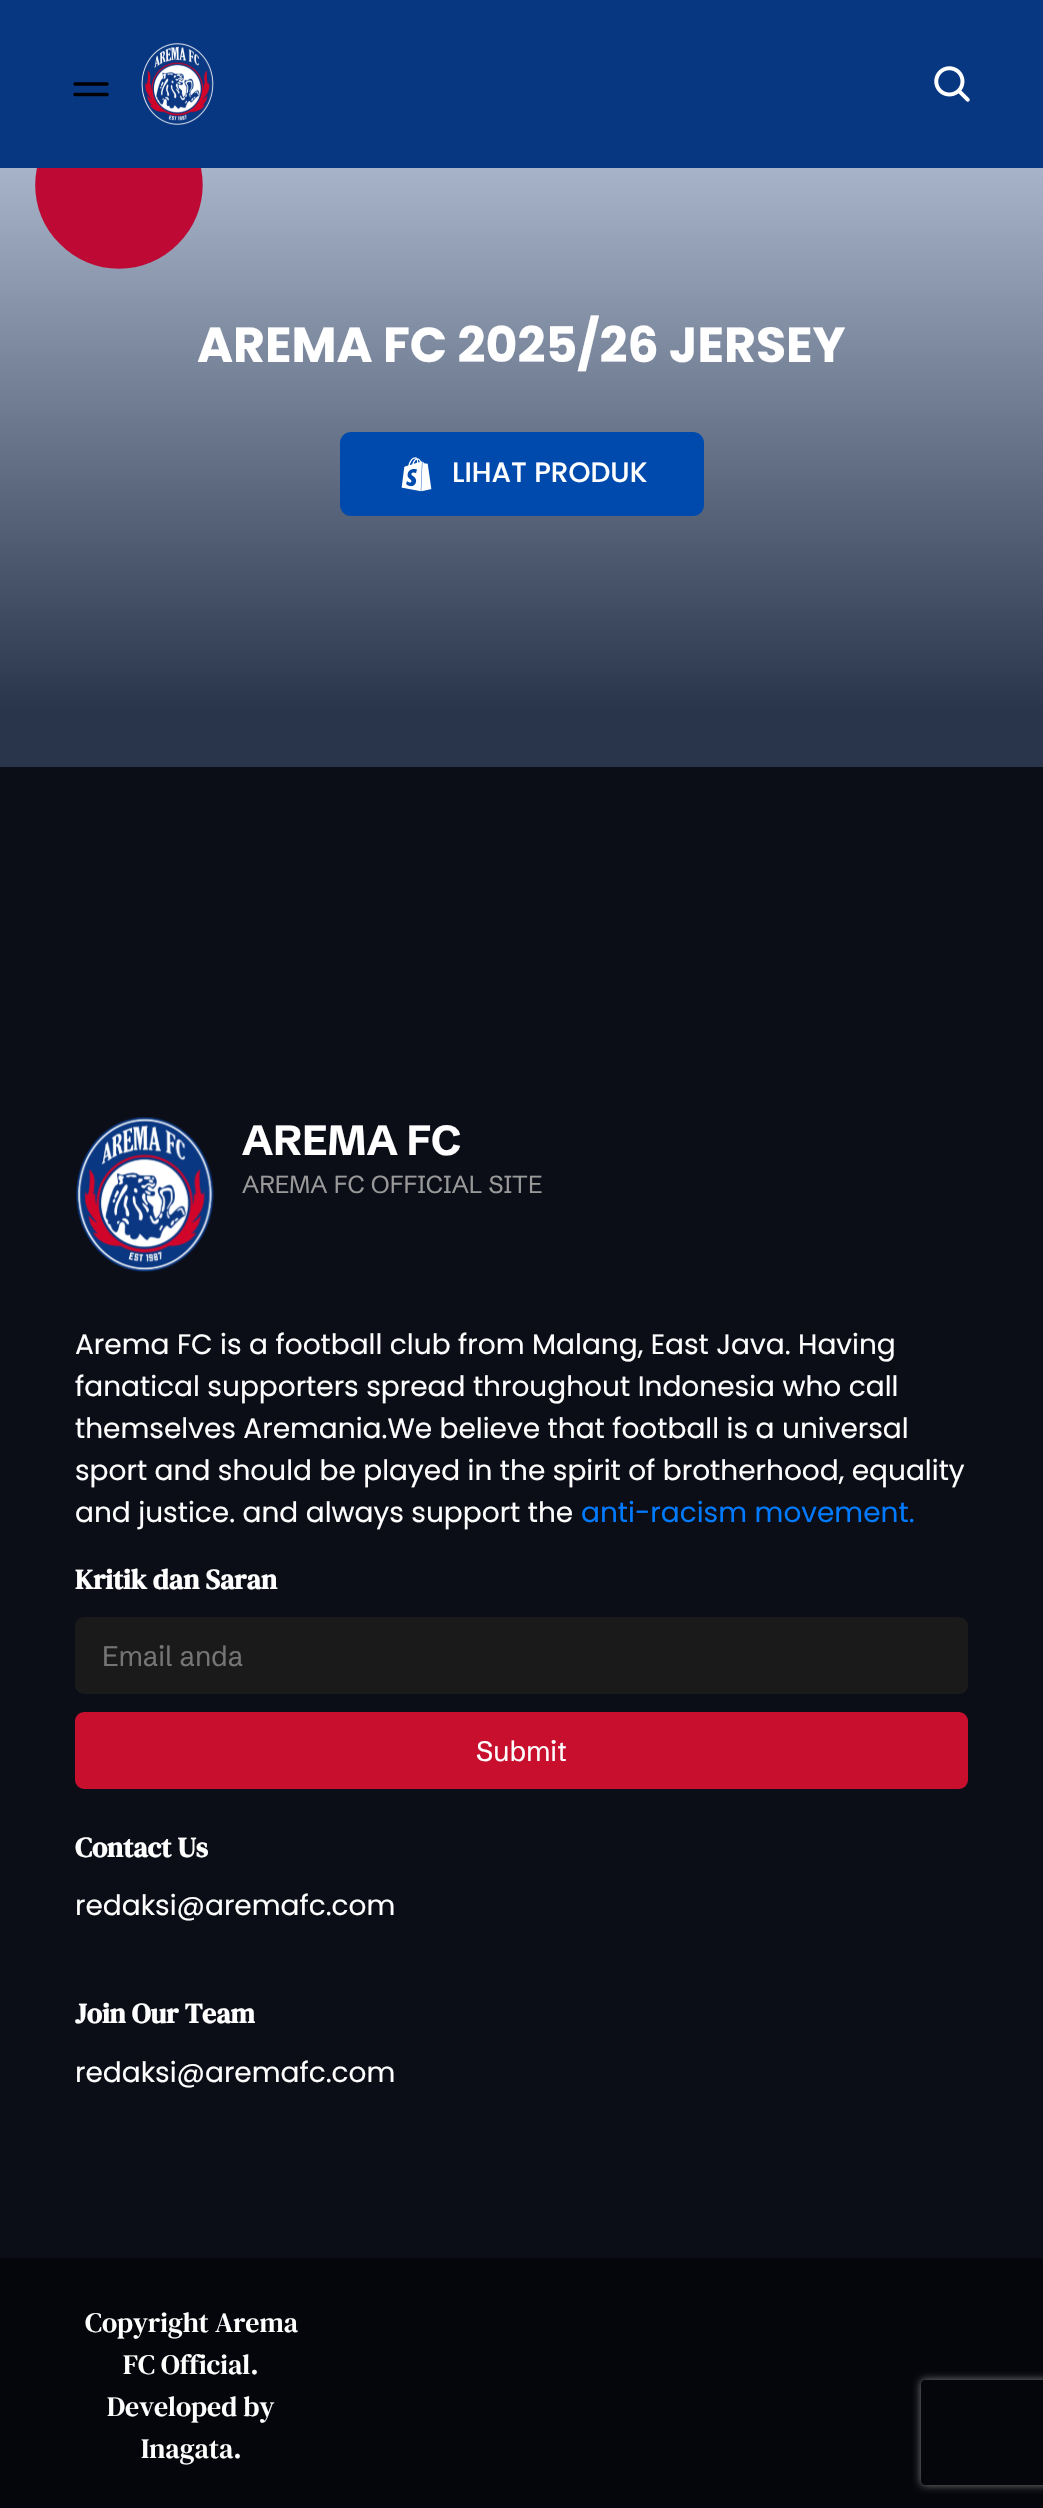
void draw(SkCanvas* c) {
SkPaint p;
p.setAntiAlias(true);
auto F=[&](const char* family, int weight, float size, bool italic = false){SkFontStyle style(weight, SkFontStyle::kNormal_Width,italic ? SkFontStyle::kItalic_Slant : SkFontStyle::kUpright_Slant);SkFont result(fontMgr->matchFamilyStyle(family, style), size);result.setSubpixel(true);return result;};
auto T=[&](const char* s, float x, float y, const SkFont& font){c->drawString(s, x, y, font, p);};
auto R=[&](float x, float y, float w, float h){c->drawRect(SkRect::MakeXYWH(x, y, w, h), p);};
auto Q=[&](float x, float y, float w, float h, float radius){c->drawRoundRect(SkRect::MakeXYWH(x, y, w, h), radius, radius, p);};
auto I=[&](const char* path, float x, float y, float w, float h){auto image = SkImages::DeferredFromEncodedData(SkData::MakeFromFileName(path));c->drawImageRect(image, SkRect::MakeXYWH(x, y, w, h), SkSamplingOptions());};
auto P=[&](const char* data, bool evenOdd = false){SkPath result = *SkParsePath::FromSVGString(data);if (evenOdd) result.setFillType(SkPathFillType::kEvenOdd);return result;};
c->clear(0xff0b0d17);
{
const SkColor colors[] = {0xffbecbe1,0xff28354b};
const float stops[] = {0,.92};
const SkPoint ends[] = {{522,66}, {522,767}};
p.setShader(SkGradientShader::MakeLinear(ends, colors, stops, 2, SkTileMode::kClamp));
p.setAlpha(255);
}
R(0,168,1043,599);
p.setShader(nullptr);
p.setColor(0xffbd0933);
c->drawPath(P("M60 126c32-33 86-33 118 0c33 32 33 86 0 118c-32 33-86 33-118 0c-33-32-33-86 0-118z"),p);
p.setColor(0xff083781);
R(0,0,1043,168);
p.setStroke(true);
p.setStrokeWidth(3.5);
p.setStrokeCap(SkPaint::kRound_Cap);
p.setColor(0xff000000);
c->drawPath(P("M75 84h32m-32 10.5h32"),p);
I("1.png",141,42,73,84);
I("2.png",934,66,36,36);
auto f1 = F("Poppins",700,49);
p.setStroke(false);
p.setColor(0xffffffff);
T("AREMA FC 2025/26 JERSEY",197,362,f1);
p.setColor(0xff004aad);
Q(340,432,364,84,11);
I("3.png",401,457,31,35);
auto f2 = F("Poppins",500,28);
p.setColor(0xffffffff);
T("LIHAT PRODUK",452,482,f2);
I("4.png",76,1117,138,155);
auto f3 = F("Schibsted Grotesk",700,42);
T("AREMA FC",242,1155,f3);
auto f4 = F("Schibsted Grotesk",400,24.5);
p.setColor(0xff999999);
T("AREMA FC OFFICIAL SITE",242,1193,f4);
auto f5 = F("Poppins",400,28);
p.setColor(0xffffffff);
T("Arema FC is a football club from Malang, East Java. Having",75,1354,f5);
T("fanatical supporters spread throughout Indonesia who call",75,1396,f5);
T("themselves Aremania.We believe that football is a universal",75,1438,f5);
T("sport and should be played in the spirit of brotherhood, equality",75,1480,f5);
T("and justice. and always support the",75,1522,f5);
p.setColor(0xff007bff);
T("anti-racism movement.",581,1522,f5);
auto f6 = F("DM Serif Text",700,28);
p.setColor(0xffffffff);
T("Kritik dan Saran",75,1589,f6);
p.setColor(0xff1a1a1a);
Q(75,1617,893,77,9);
auto f7 = F("Schibsted Grotesk",400,28);
p.setColor(0xff757575);
T("Email anda",102,1666,f7);
p.setColor(0xffc8102e);
Q(75,1712,893,77,9);
p.setColor(0xffffffff);
T("Submit",476,1761,f7);
T("Contact Us",75,1857,f6);
T("redaksi@aremafc.com",75,1915,f5);
T("Join Our Team",75,2023,f6);
T("redaksi@aremafc.com",75,2082,f5);
p.setColor(0xff05060b);
R(0,2258,1043,250);
auto f8 = F("DM Serif Text",400,28);
p.setColor(0xffffffff);
T("Copyright Arema",85,2332,f8);
T("FC Official.",123,2374,f8);
T("Developed by",107,2416,f8);
T("Inagata.",141,2458,f8);
c->save();
c->clipPath(P("M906 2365h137v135h-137zm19 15h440c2 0 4 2 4 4v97c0 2-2 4-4 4h-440c-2 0-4-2-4-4v-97c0-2 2-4 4-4z",true),true);
p.setColor(0xff808080);
p.setMaskFilter(SkMaskFilter::MakeBlur(kNormal_SkBlurStyle, 4.5));
c->drawRoundRect(SkRect::MakeXYWH(921,2380,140,105),4,4,p);
p.setMaskFilter(nullptr);
c->restore();
}
